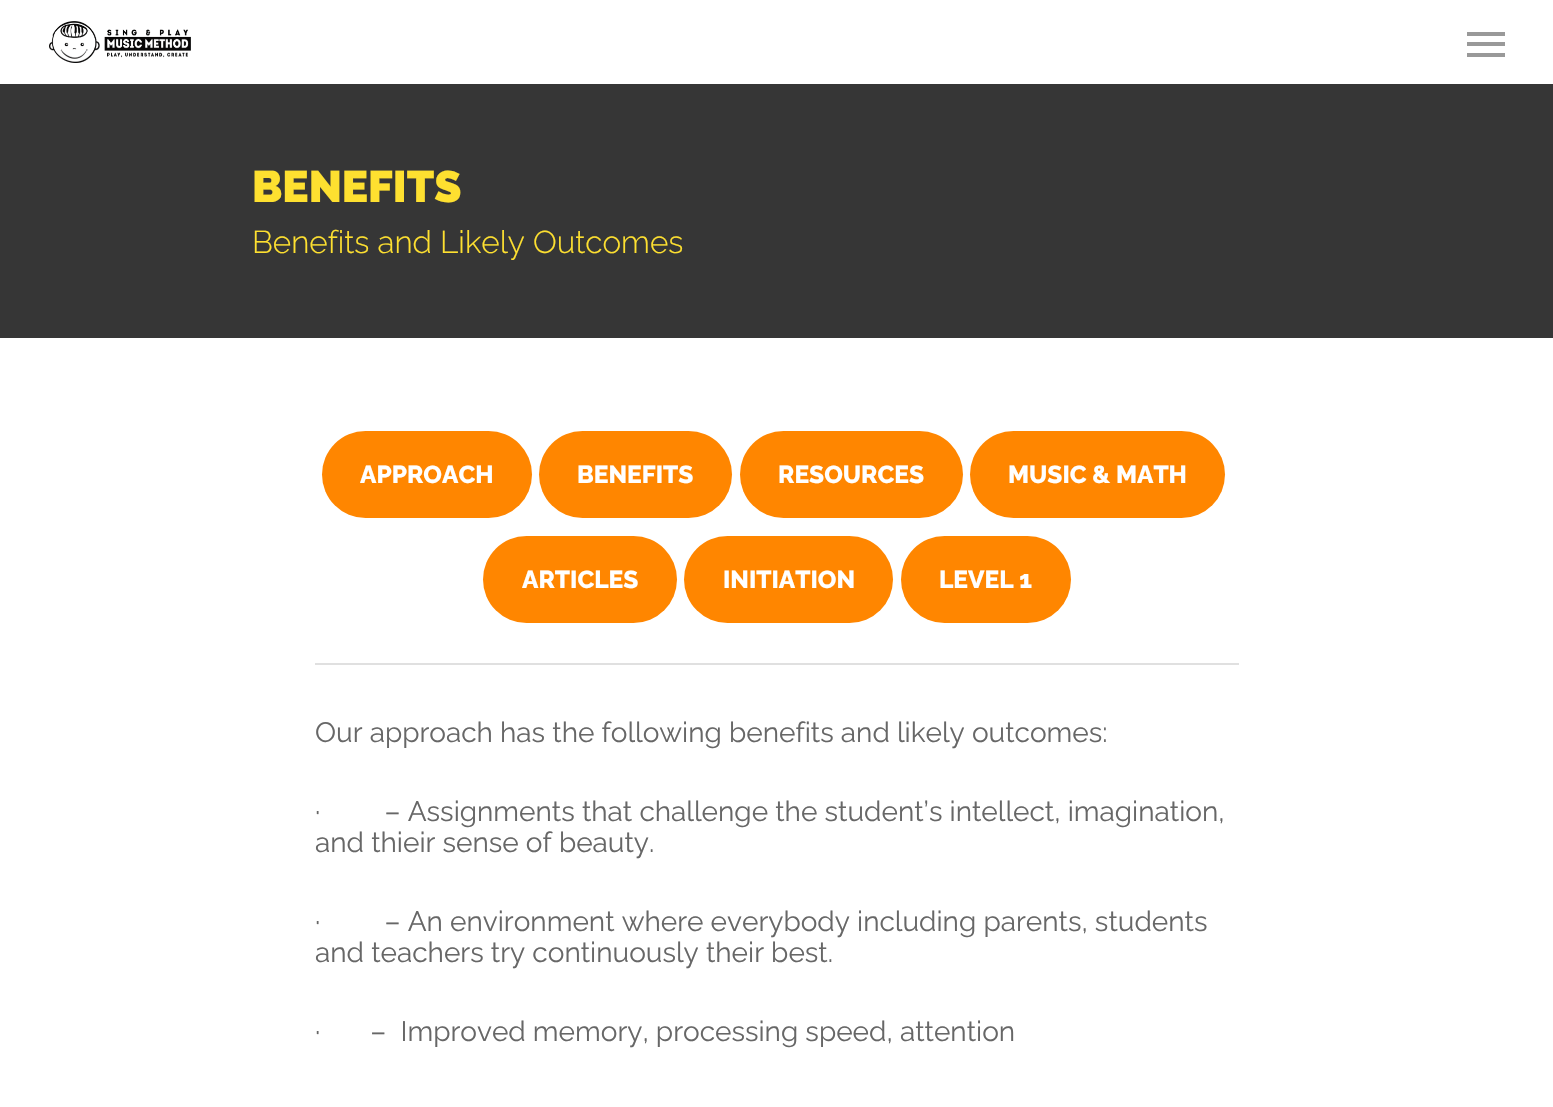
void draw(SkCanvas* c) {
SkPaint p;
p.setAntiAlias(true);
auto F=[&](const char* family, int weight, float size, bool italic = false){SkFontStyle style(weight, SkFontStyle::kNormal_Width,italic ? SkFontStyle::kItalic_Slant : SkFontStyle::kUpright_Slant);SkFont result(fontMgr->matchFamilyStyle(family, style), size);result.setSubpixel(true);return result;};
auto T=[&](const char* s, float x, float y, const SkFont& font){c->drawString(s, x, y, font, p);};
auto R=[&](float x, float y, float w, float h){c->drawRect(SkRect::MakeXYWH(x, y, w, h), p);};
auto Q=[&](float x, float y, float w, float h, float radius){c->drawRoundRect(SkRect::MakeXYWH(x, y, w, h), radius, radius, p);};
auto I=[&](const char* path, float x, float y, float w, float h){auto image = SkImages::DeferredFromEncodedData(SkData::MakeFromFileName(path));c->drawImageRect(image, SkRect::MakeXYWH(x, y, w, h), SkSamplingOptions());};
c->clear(0xffffffff);
I("1.png",49,21,142,42);
p.setColor(0xff999999);
R(1467,32,38,4);
R(1467,53,38,4);
R(1467,42,38,4);
p.setColor(0xff363636);
R(0,84,1553,254);
auto f1 = F("Raleway",900,44);
p.setColor(0xfffee030);
T("BENEFITS",252,202,f1);
auto f2 = F("Raleway",300,31.5);
T("Benefits and Likely Outcomes",252,253,f2);
p.setColor(0xffff8600);
Q(322,431,210,87,43.5);
auto f3 = F("Raleway",800,24.5);
p.setColor(0xffffffff);
T("APPROACH",360,483,f3);
p.setColor(0xffff8600);
Q(539,431,193,87,43.5);
p.setColor(0xffffffff);
T("BENEFITS",577,483,f3);
p.setColor(0xffff8600);
Q(740,431,223,87,43.5);
p.setColor(0xffffffff);
T("RESOURCES",778,483,f3);
p.setColor(0xffff8600);
Q(970,431,255,87,43.5);
p.setColor(0xffffffff);
T("MUSIC & MATH",1008,483,f3);
p.setColor(0xffff8600);
Q(483,536,194,87,43.5);
p.setColor(0xffffffff);
T("ARTICLES",522,588,f3);
p.setColor(0xffff8600);
Q(684,536,209,87,43.5);
p.setColor(0xffffffff);
T("INITIATION",723,588,f3);
p.setColor(0xffff8600);
Q(901,536,170,87,43.5);
p.setColor(0xffffffff);
T("LEVEL 1",939,588,f3);
p.setColor(0xffe0e0e0);
R(315,663,924,2);
auto f4 = F("Raleway",400,28);
p.setColor(0xff676767);
T("Our approach has the following benefits and likely outcomes:",315,742,f4);
T("·         – Assignments that challenge the student’s intellect, imagination,",315,821,f4);
T("and thieir sense of beauty.",315,852,f4);
T("·         – An environment where everybody including parents, students",315,931,f4);
T("and teachers try continuously their best.",315,962,f4);
T("·       –  Improved memory, processing speed, attention",315,1041,f4);
}
